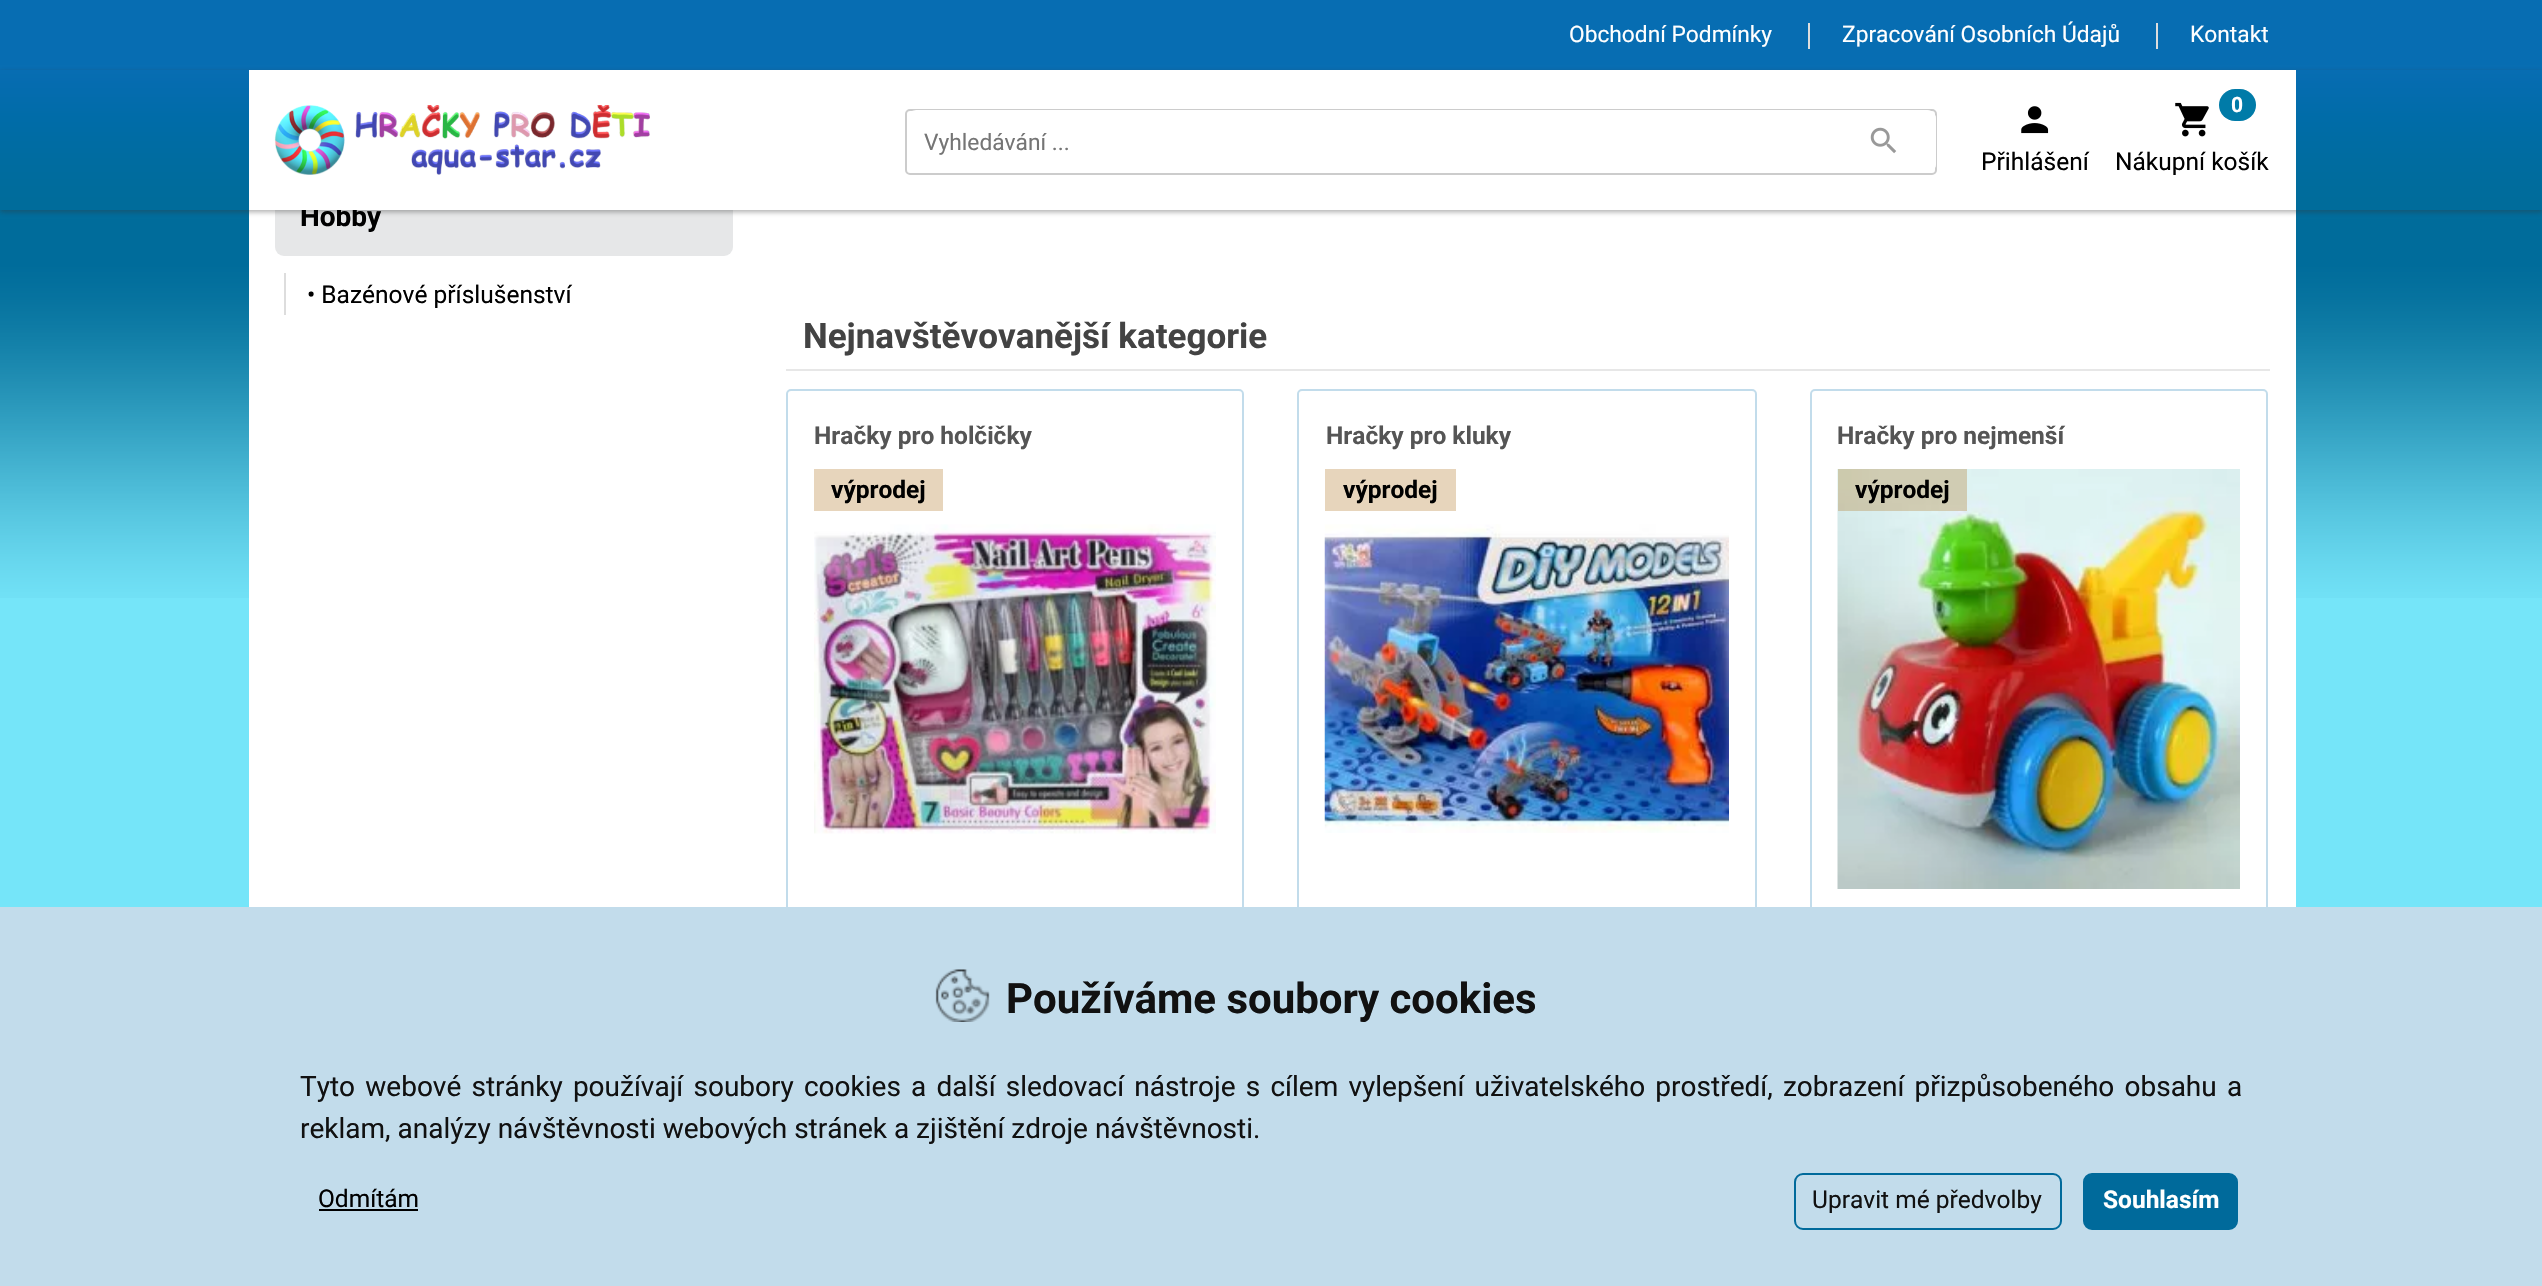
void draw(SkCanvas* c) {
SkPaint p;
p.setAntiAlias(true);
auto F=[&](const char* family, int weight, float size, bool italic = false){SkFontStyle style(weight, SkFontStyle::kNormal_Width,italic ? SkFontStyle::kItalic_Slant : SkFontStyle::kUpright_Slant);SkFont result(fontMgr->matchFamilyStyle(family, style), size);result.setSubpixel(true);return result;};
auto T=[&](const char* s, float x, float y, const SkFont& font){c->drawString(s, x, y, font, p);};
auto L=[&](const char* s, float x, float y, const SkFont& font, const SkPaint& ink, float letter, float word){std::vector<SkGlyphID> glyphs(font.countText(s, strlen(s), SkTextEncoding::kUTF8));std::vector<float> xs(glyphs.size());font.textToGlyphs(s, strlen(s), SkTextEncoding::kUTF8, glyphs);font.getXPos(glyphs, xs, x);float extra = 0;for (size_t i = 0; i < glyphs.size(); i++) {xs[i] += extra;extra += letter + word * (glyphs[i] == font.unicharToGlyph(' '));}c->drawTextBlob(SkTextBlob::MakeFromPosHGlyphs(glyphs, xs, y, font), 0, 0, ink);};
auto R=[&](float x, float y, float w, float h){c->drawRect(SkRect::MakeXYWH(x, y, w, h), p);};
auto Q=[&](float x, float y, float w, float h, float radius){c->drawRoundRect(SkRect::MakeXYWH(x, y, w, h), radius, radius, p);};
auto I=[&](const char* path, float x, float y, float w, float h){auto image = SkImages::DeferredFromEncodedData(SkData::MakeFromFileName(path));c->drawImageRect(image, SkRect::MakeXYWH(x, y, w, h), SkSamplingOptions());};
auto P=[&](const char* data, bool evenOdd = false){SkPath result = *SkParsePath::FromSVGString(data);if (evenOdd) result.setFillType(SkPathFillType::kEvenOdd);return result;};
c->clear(0xff75e5f9);
I("1.png",0,70,2542,528);
p.setColor(0xff076db2);
R(0,0,2542,70);
auto f1 = F("Roboto",400,22.75);
p.setColor(0xffffffff);
T("Obchodní Podmínky",1569,42,f1);
p.setColor(0xffdddddd);
R(1808,23,2,26);
p.setColor(0xffffffff);
T("Zpracování Osobních Údajů",1842,42,f1);
p.setColor(0xffdddddd);
R(2156,23,2,26);
p.setColor(0xffffffff);
T("Kontakt",2190,42,f1);
R(249,70,2047,837);
p.setColor(0xffe6e7e8);
Q(275,179,458,77,9);
c->save();
c->clipPath(P("M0 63h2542v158h-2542zm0 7h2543v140h-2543z",true),true);
p.setColor(0x66323232);
p.setMaskFilter(SkMaskFilter::MakeBlur(kNormal_SkBlurStyle, 2.5));
c->drawRect(SkRect::MakeXYWH(0,72,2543,140),p);
p.setMaskFilter(nullptr);
c->restore();
auto f2 = F("Roboto",700,28);
p.setColor(0xff000000);
T("Hobby",300,226,f2);
p.setColor(0xffffffff);
c->drawPath(P("M258 70h2029c5 0 9 4 9 9v131h-2047v-131c0-5 4-9 9-9z"),p);
I("2.png",274,105,376,70);
p.setStroke(true);
p.setStrokeWidth(2);
p.setColor(0xffcccccc);
c->drawRoundRect(SkRect::MakeXYWH(906,110,1030,64),4,4,p);
p.setStroke(false);
p.setColor(0xffffffff);
Q(907,110,1029,63,9);
p.setColor(0xff757575);
T("Vyhledávání ...",924,150,f1);
p.setColor(0xffffffff);
Q(1831,110,105,63,9);
I("3.png",1870,127,27,27);
I("4.png",2175,102,34,35);
p.setColor(0xff007ba8);
Q(2219,89,37,32,16);
auto f3 = F("Roboto",700,21);
p.setColor(0xffffffff);
T("0",2231,112,f3);
auto f4 = F("Roboto",400,24.5);
p.setColor(0xff000000);
T("Nákupní košík",2115,170,f4);
I("5.png",2021,106,28,28);
T("Přihlášení",1981,170,f4);
p.setColor(0xffdddddd);
R(284,273,2,42);
p.setColor(0xff000000);
T("• Bazénové příslušenství",307,303,f4);
p.setColor(0xffe7e7e7);
R(786,369,1484,2);
auto f5 = F("Roboto",700,35);
p.setColor(0xff434343);
T("Nejnavštěvovanější kategorie",803,348,f5);
p.setStroke(true);
p.setColor(0xffc2dceb);
c->drawRoundRect(SkRect::MakeXYWH(787,390,456,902),4,4,p);
auto f6 = F("Roboto",700,24.5);
p.setStroke(false);
p.setColor(0xff555555);
T("Hračky pro holčičky",814,444,f6);
p.setColor(0xffe7d5bc);
R(814,469,129,42);
p.setColor(0xff000000);
T("výprodej",831,498,f6);
I("6.png",814,524,402,310);
p.setStroke(true);
p.setColor(0xffc2dceb);
c->drawRoundRect(SkRect::MakeXYWH(1298,390,458,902),4,4,p);
p.setStroke(false);
p.setColor(0xff555555);
T("Hračky pro kluky",1326,444,f6);
p.setColor(0xffe7d5bc);
R(1325,469,131,42);
p.setColor(0xff000000);
T("výprodej",1343,498,f6);
I("7.png",1324,524,405,309);
p.setStroke(true);
p.setColor(0xffc2dceb);
c->drawRoundRect(SkRect::MakeXYWH(1811,390,456,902),4,4,p);
p.setStroke(false);
p.setColor(0xff555555);
T("Hračky pro nejmenší",1837,444,f6);
I("8.png",1837,469,403,420);
p.setColor(0x4db07320);
R(1838,469,129,42);
p.setColor(0xff000000);
T("výprodej",1855,498,f6);
p.setColor(0xffc2dceb);
R(0,907,2542,379);
I("9.png",935,969,55,53);
auto f7 = F("Roboto",700,42);
p.setColor(0xff111111);
T("Používáme soubory cookies",1006,1013,f7);
auto f8 = F("Roboto",400,28);
L("Tyto webové stránky používají soubory cookies a další sledovací nástroje s cílem vylepšení uživatelského prostředí, zobrazení přizpůsobeného obsahu a",300,1096,f8,p,0,3.25);
T("reklam, analýzy návštěvnosti webových stránek a zjištění zdroje návštěvnosti.",300,1138,f8);
p.setColor(0xff000000);
T("Odmítám",318,1207,f4);
R(319,1209,99,2);
p.setStroke(true);
p.setColor(0xff006a9b);
c->drawRoundRect(SkRect::MakeXYWH(1795,1174,266,55),8,8,p);
p.setStroke(false);
p.setColor(0xff111111);
T("Upravit mé předvolby",1812,1208,f4);
p.setColor(0xff006a9b);
c->drawRoundRect(SkRect::MakeXYWH(2084,1174,153,55),8,8,p);
p.setStroke(true);
c->drawRoundRect(SkRect::MakeXYWH(2084,1174,153,55),8,8,p);
p.setStroke(false);
p.setColor(0xffffffff);
T("Souhlasím",2103,1208,f6);
}
